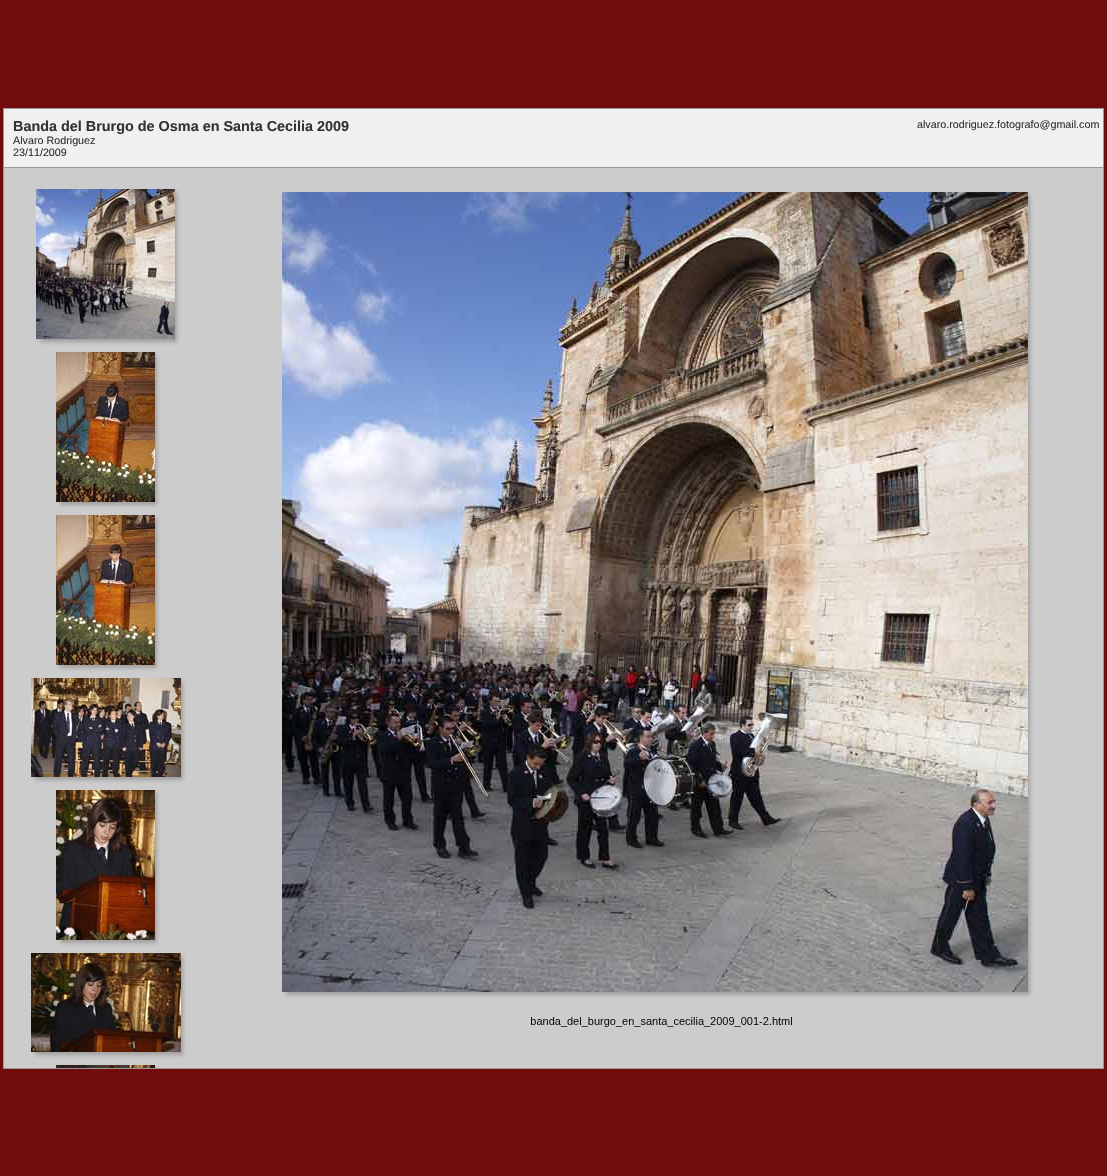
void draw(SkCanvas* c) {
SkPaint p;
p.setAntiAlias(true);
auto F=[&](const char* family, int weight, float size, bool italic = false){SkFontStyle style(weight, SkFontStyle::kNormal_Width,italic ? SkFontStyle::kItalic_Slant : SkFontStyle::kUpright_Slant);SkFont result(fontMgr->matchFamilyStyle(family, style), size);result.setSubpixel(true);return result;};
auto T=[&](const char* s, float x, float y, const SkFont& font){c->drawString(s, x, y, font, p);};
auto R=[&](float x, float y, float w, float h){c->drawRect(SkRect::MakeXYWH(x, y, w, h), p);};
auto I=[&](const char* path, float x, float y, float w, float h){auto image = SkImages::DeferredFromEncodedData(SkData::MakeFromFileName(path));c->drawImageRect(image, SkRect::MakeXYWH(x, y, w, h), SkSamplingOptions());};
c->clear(0xff720b0b);
p.setStroke(true);
p.setStrokeWidth(1);
p.setColor(0xff999999);
c->drawRect(SkRect::MakeXYWH(3.5,108.5,1100,960),p);
p.setStroke(false);
p.setColor(0xffcccccc);
R(4,168,1099,900);
p.setColor(0xfff0f0f0);
R(4,109,1099,58);
auto f1 = F("Liberation Sans",700,14.4);
p.setColor(0xff333333);
T("Banda del Brurgo de Osma en Santa Cecilia 2009",13,131,f1);
auto f2 = F("Liberation Sans",400,10.75);
T("Alvaro Rodriguez",13,144,f2);
T("23/11/2009",13,156,f2);
T("alvaro.rodriguez.fotografo@gmail.com",917,128,f2);
p.setColor(0xff999999);
R(4,167,1099,1);
I("1.png",31,189,155,879);
I("2.png",282,192,751,835);
}
